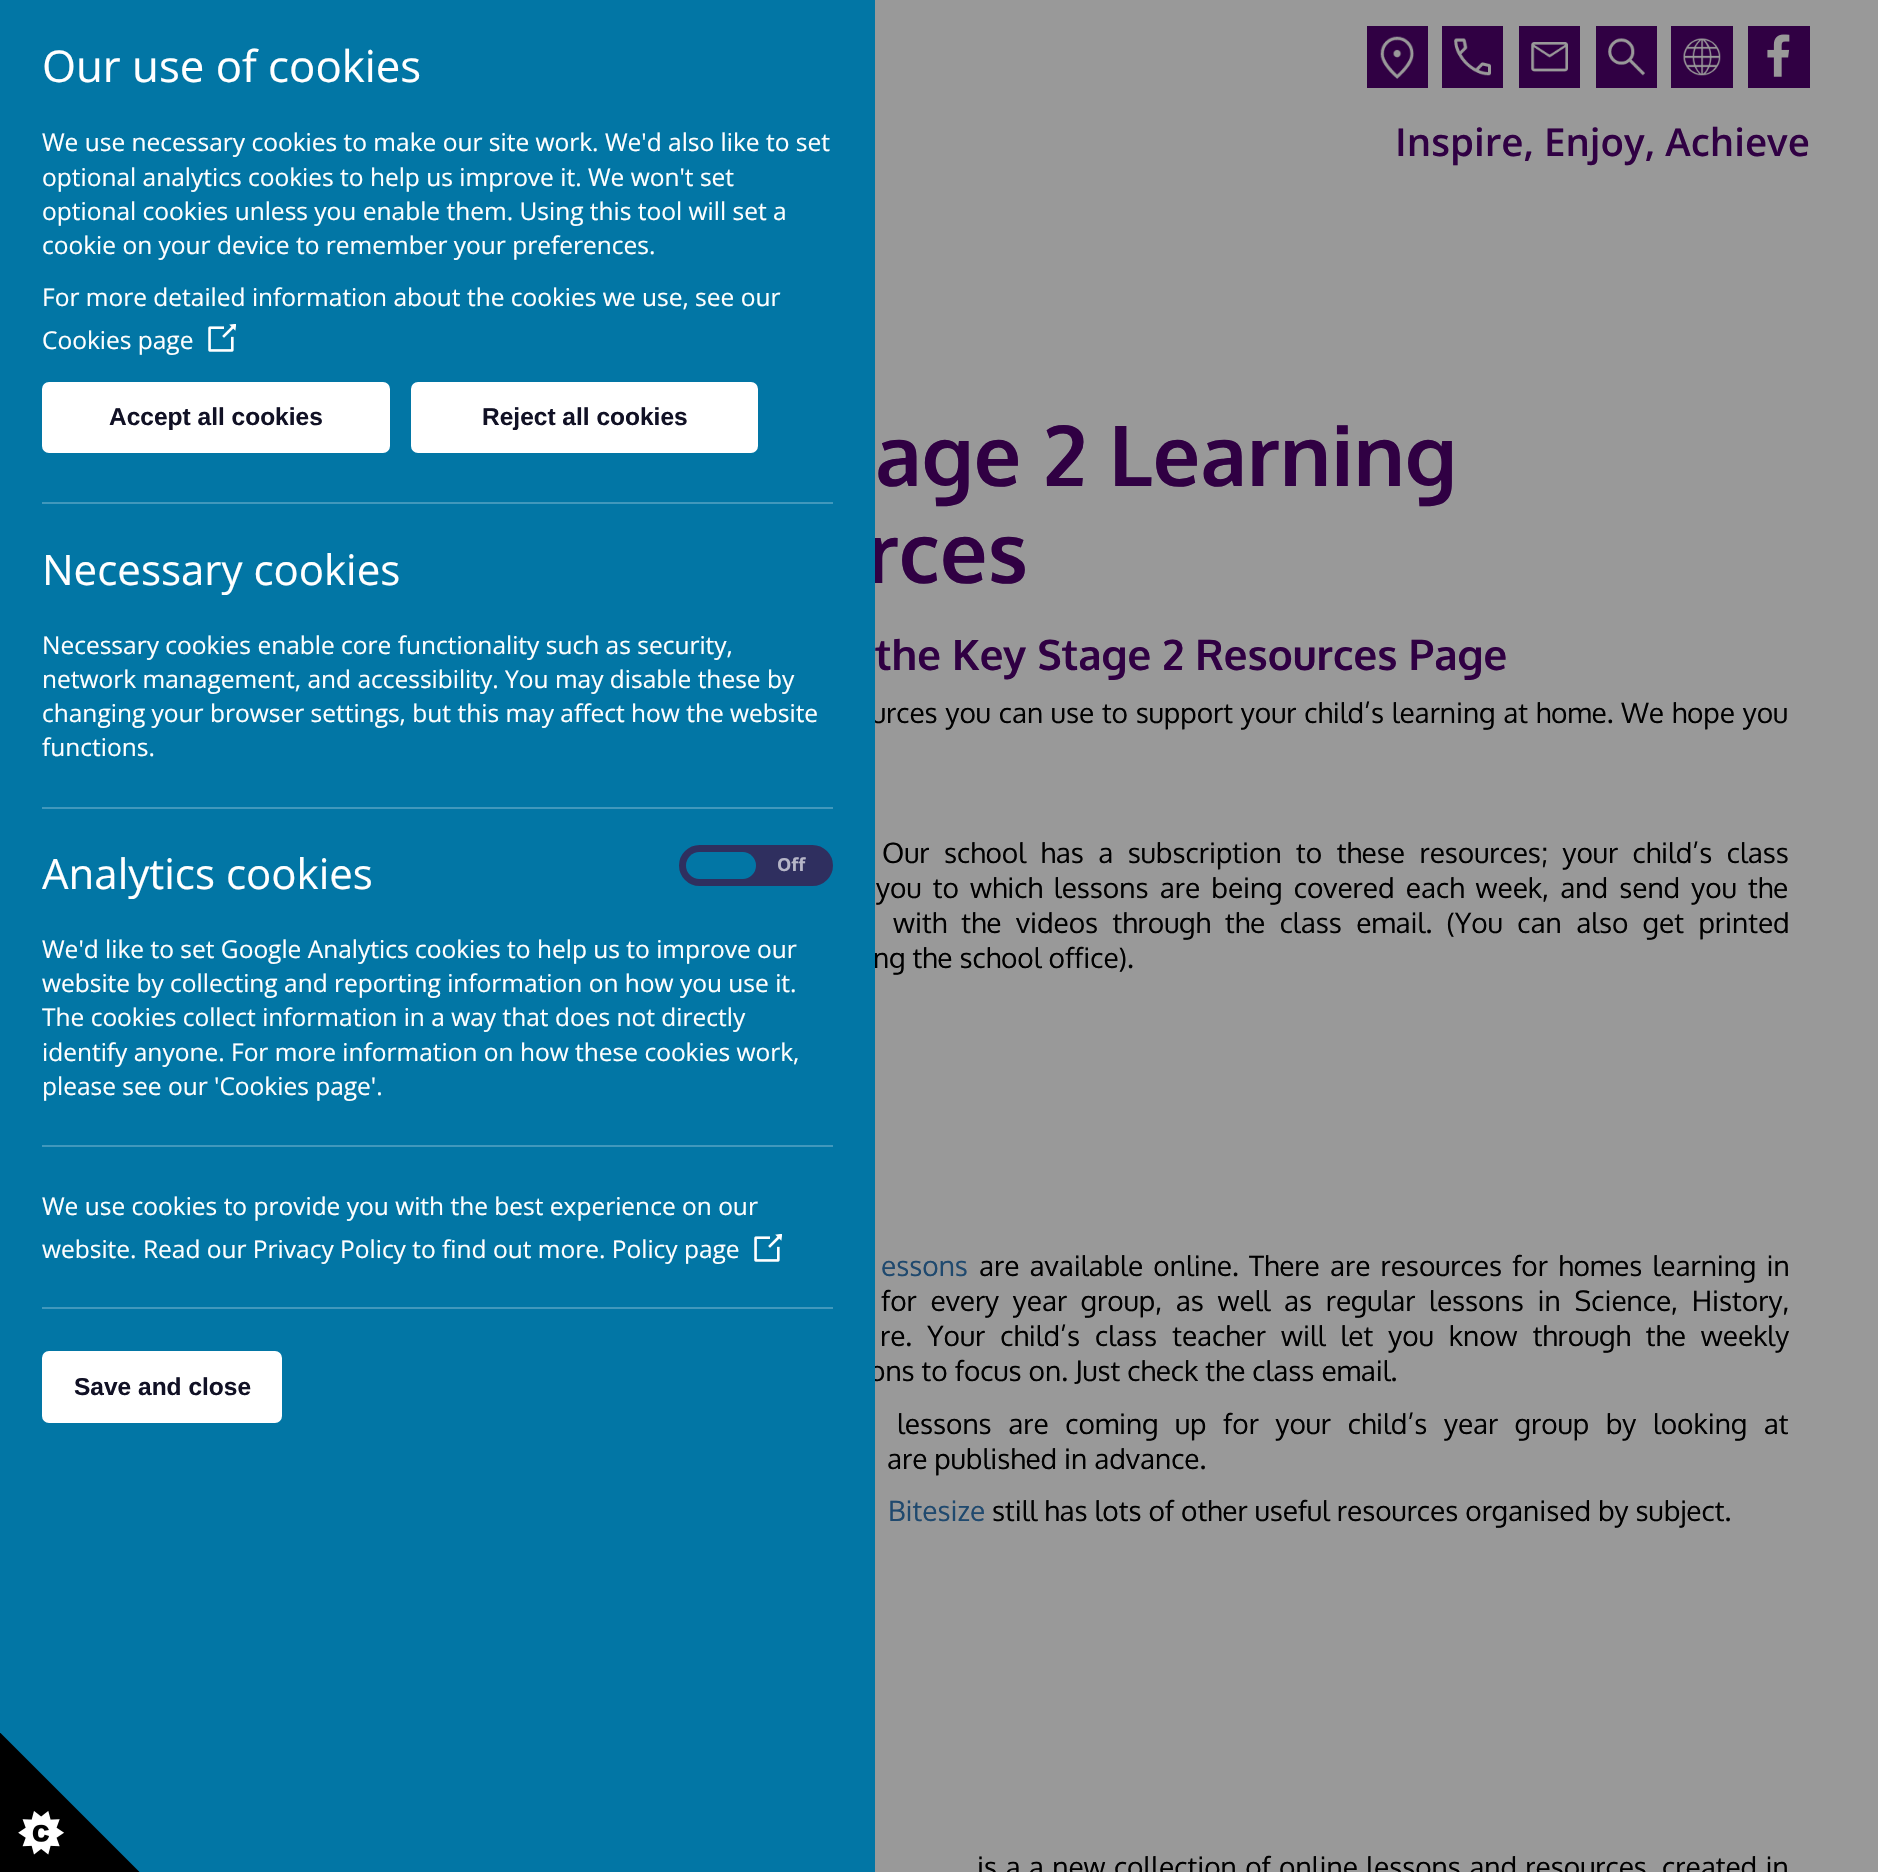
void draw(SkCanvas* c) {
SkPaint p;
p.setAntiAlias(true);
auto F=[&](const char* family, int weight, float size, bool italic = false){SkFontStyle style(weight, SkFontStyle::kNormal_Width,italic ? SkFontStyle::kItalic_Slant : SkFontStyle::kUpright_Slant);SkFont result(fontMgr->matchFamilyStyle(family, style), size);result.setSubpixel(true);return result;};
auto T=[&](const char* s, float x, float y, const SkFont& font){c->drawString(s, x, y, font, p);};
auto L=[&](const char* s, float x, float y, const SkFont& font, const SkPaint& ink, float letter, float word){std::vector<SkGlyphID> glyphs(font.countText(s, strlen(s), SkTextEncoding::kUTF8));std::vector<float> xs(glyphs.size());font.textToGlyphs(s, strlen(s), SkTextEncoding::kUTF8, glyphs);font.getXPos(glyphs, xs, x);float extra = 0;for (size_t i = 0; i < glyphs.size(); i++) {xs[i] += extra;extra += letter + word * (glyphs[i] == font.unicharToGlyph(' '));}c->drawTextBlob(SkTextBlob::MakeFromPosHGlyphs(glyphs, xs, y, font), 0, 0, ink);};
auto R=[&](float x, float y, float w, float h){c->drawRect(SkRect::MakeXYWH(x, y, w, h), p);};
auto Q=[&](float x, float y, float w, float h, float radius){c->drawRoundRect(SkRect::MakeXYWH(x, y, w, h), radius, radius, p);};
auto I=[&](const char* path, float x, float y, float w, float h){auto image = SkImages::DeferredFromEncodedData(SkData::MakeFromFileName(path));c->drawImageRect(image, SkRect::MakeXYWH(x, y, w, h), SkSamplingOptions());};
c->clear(0xff999999);
auto f1 = F("Oxygen",700,84);
p.setColor(0xff300043);
T("rces",866,583,f1);
auto f2 = F("Oxygen",400,28);
p.setColor(0xff000000);
L("urces you can use to support your child’s learning at home. We hope you",871,723,f2,p,0,.8);
T("ng the school office).",873,968,f2);
T("ons to focus on. Just check the class email.",869,1381,f2);
p.setColor(0xff0276a5);
R(0,0,875,1872);
auto f3 = F("Open Sans",400,43.75);
p.setColor(0xffffffff);
T("Our use of cookies",42,82,f3);
auto f4 = F("Open Sans",400,24.5);
T("We use necessary cookies to make our site work. We'd also like to set",42,151,f4);
T("optional analytics cookies to help us improve it. We won't set",42,186,f4);
T("optional cookies unless you enable them. Using this tool will set a",42,220,f4);
T("cookie on your device to remember your preferences.",42,254,f4);
T("For more detailed information about the cookies we use, see our",42,306,f4);
T("Cookies page",42,349,f4);
I("1.png",208,324,28,28);
c->drawRoundRect(SkRect::MakeXYWH(44,384,344,67),5,5,p);
p.setStroke(true);
p.setStrokeWidth(4);
c->drawRoundRect(SkRect::MakeXYWH(44,384,344,67),5,5,p);
auto f5 = F("Liberation Sans",700,24.5);
p.setStroke(false);
p.setColor(0xff111125);
T("Accept all cookies",109,425,f5);
p.setColor(0xffffffff);
c->drawRoundRect(SkRect::MakeXYWH(413,384,343,67),5,5,p);
p.setStroke(true);
c->drawRoundRect(SkRect::MakeXYWH(413,384,343,67),5,5,p);
p.setStroke(false);
p.setColor(0xff111125);
T("Reject all cookies",482,425,f5);
p.setColor(0xff4198bc);
R(42,502,791,2);
auto f6 = F("Open Sans",400,42);
p.setColor(0xffffffff);
T("Necessary cookies",42,585,f6);
T("Necessary cookies enable core functionality such as security,",42,654,f4);
T("network management, and accessibility. You may disable these by",42,688,f4);
T("changing your browser settings, but this may affect how the website",42,722,f4);
T("functions.",42,756,f4);
p.setColor(0xff4198bc);
R(42,807,791,2);
p.setColor(0xffffffff);
T("Analytics cookies",42,889,f6);
p.setColor(0xff2f2f5f);
c->drawRoundRect(SkRect::MakeXYWH(682.5,848.5,147,34),17,17,p);
p.setStroke(true);
p.setStrokeWidth(7);
c->drawRoundRect(SkRect::MakeXYWH(682.5,848.5,147,34),17,17,p);
p.setStroke(false);
p.setColor(0xff0276a5);
Q(686,852,70,27,13.5);
auto f7 = F("Open Sans",700,18);
p.setColor(0xffb6b6c7);
T("Off",777,871,f7);
p.setColor(0xffffffff);
T("We'd like to set Google Analytics cookies to help us to improve our",42,958,f4);
T("website by collecting and reporting information on how you use it.",42,992,f4);
T("The cookies collect information in a way that does not directly",42,1026,f4);
T("identify anyone. For more information on how these cookies work,",42,1061,f4);
T("please see our 'Cookies page'.",42,1095,f4);
p.setColor(0xff4198bc);
R(42,1145,791,2);
p.setColor(0xffffffff);
T("We use cookies to provide you with the best experience on our",42,1215,f4);
T("website. Read our Privacy Policy to find out more. Policy page",42,1258,f4);
I("1.png",754,1234,28,28);
p.setColor(0xff4198bc);
R(42,1307,791,2);
p.setColor(0xffffffff);
c->drawRoundRect(SkRect::MakeXYWH(44,1353,236,68),5,5,p);
p.setStroke(true);
p.setStrokeWidth(4);
c->drawRoundRect(SkRect::MakeXYWH(44,1353,236,68),5,5,p);
p.setStroke(false);
p.setColor(0xff111125);
T("Save and close",74,1395,f5);
I("2.png",0,1733,140,139);
p.setColor(0xff300043);
R(1367,26,61,62);
I("3.png",1380,36,34,43);
R(1442,26,61,62);
I("4.png",1454,38,37,38);
R(1519,26,61,62);
I("5.png",1531,42,37,30);
R(1596,26,61,62);
I("6.png",1608,38,37,38);
R(1671,26,62,62);
I("7.png",1683,38,38,38);
R(1748,26,62,62);
I("8.png",1767,34,23,43);
auto f8 = F("Open Sans",600,38.5);
T("Inspire, Enjoy, Achieve",1395,156,f8);
T("age 2 Learning",875,486,f1);
auto f9 = F("Oxygen",700,42);
T("the Key Stage 2 Resources Page",875,670,f9);
p.setColor(0xff000000);
L("Our school has a subscription to these resources; your child’s class",882,863,f2,p,0,7.5);
L("you to which lessons are being covered each week, and send you the",876,898,f2,p,0,4.25);
L("with the videos through the class email. (You can also get printed",893,933,f2,p,0,7.5);
p.setColor(0xff1f496e);
L("essons",881,1276,f2,p,0,3.25);
p.setColor(0xff000000);
L("are available online. There are resources for homes learning in",979,1276,f2,p,0,3.25);
L("for every year group, as well as regular lessons in Science, History,",881,1311,f2,p,0,6.75);
L("re. Your child’s class teacher will let you know through the weekly",880,1346,f2,p,0,8.1);
L("lessons are coming up for your child’s year group by looking at",897,1434,f2,p,0,9.6);
T("are published in advance.",887,1469,f2);
p.setColor(0xff1f496e);
T("Bitesize",888,1521,f2);
p.setColor(0xff000000);
T("still has lots of other useful resources organised by subject.",992,1521,f2);
L("is a a new collection of online lessons and resources, created in",977,1877,f2,p,0,1.4);
}
